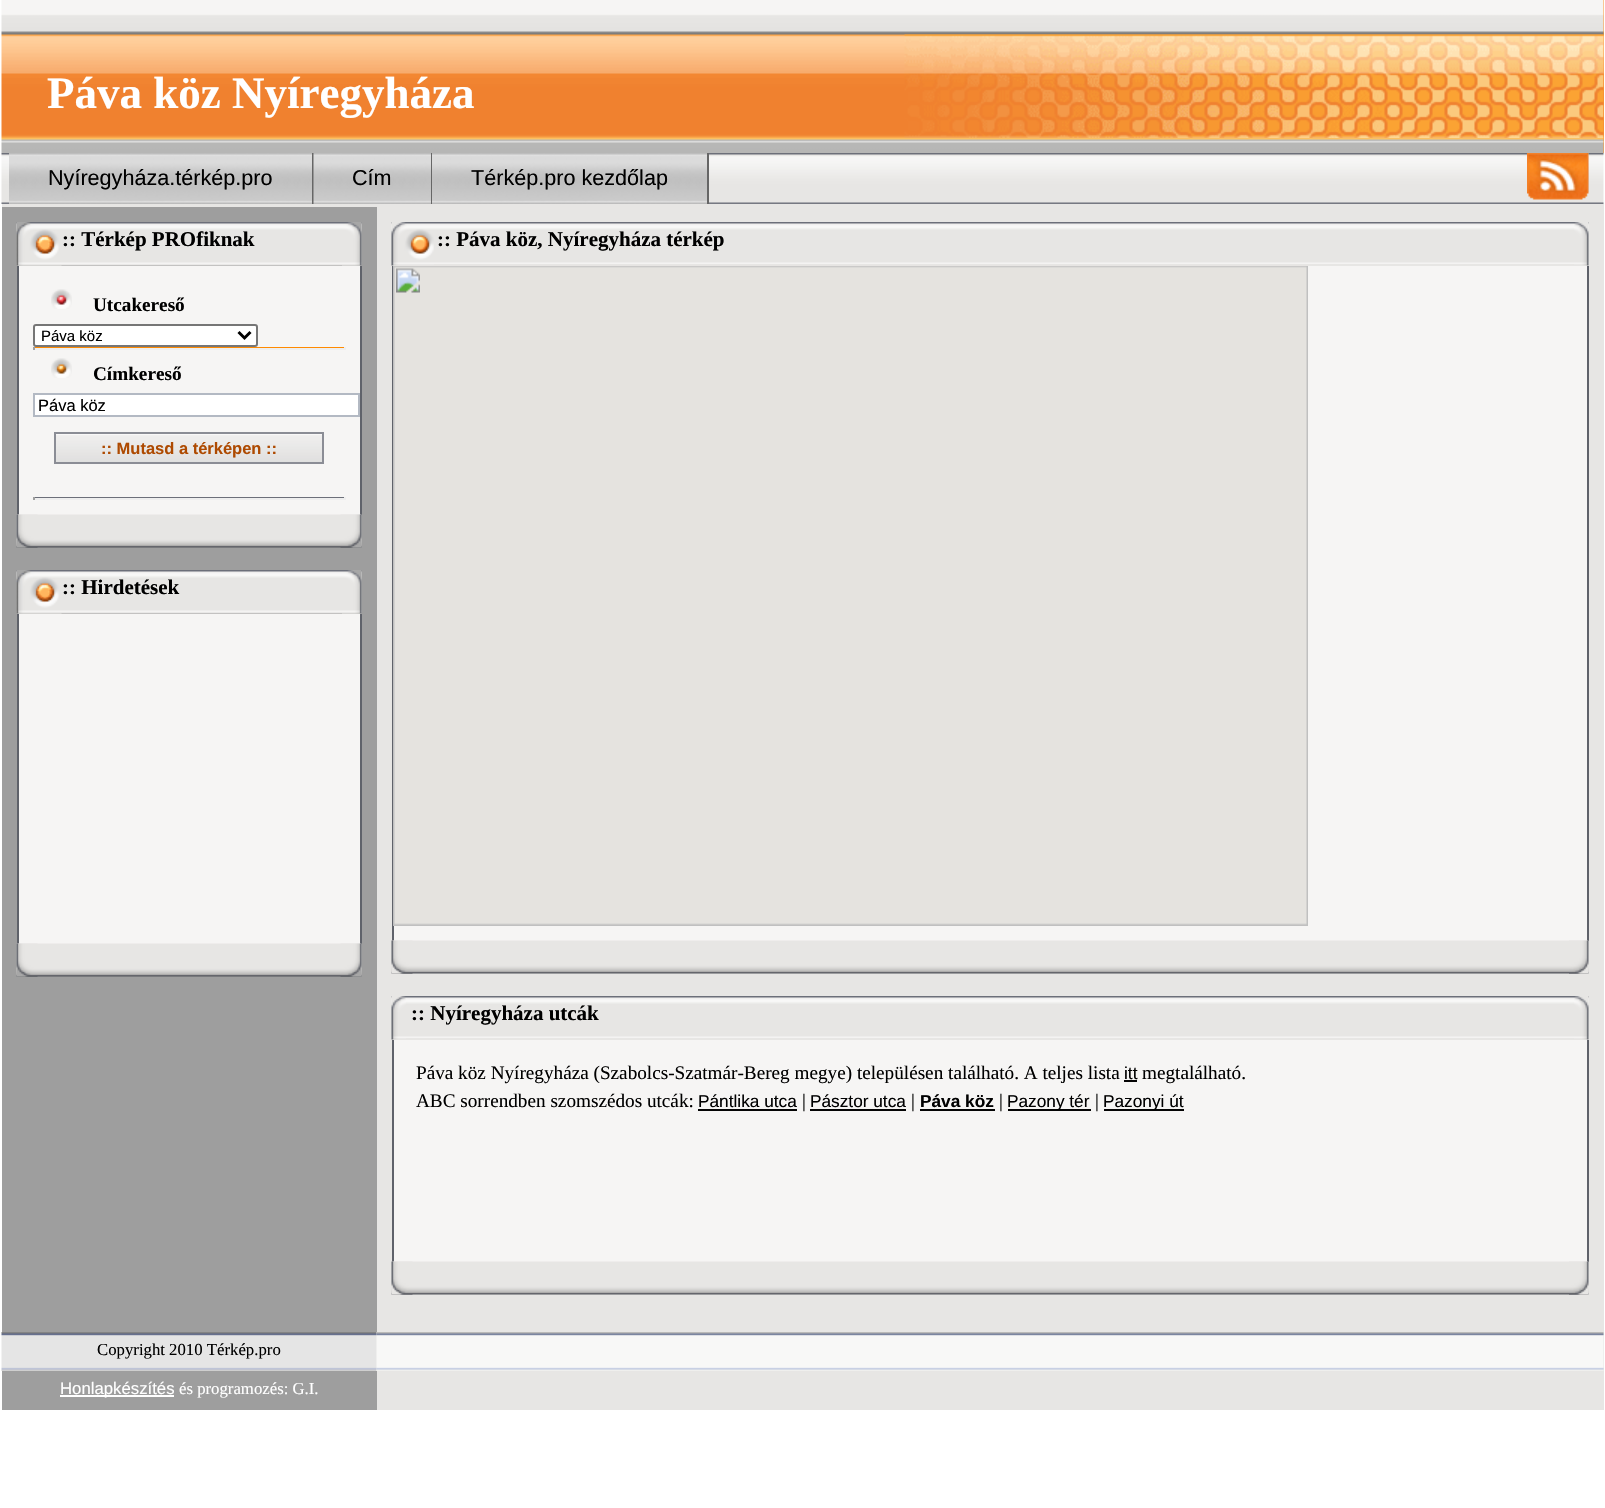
void draw(SkCanvas* c) {
SkPaint p;
p.setAntiAlias(true);
auto F=[&](const char* family, int weight, float size, bool italic = false){SkFontStyle style(weight, SkFontStyle::kNormal_Width,italic ? SkFontStyle::kItalic_Slant : SkFontStyle::kUpright_Slant);SkFont result(fontMgr->matchFamilyStyle(family, style), size);result.setSubpixel(true);return result;};
auto T=[&](const char* s, float x, float y, const SkFont& font){c->drawString(s, x, y, font, p);};
auto R=[&](float x, float y, float w, float h){c->drawRect(SkRect::MakeXYWH(x, y, w, h), p);};
auto I=[&](const char* path, float x, float y, float w, float h){auto image = SkImages::DeferredFromEncodedData(SkData::MakeFromFileName(path));c->drawImageRect(image, SkRect::MakeXYWH(x, y, w, h), SkSamplingOptions());};
auto P=[&](const char* data, bool evenOdd = false){SkPath result = *SkParsePath::FromSVGString(data);if (evenOdd) result.setFillType(SkPathFillType::kEvenOdd);return result;};
c->clear(0xffffffff);
p.setColor(0xffff9933);
R(1603,0,1,153);
I("1.png",1,0,1603,153);
auto f1 = F("Liberation Serif",700,45);
p.setColor(0xffffffff);
T("Páva köz Nyíregyháza",47,108,f1);
I("2.png",904,34,700,104);
I("3.png",1,153,1603,51);
I("4.png",9,153,303,51);
p.setColor(0xff666666);
R(312,153,2,51);
auto f2 = F("Liberation Sans",400,21.6);
p.setColor(0xff000000);
T("Nyíregyháza.térkép.pro",48,185,f2);
I("5.png",313,153,118,51);
p.setColor(0xff666666);
R(431,153,1,51);
p.setColor(0xff000000);
T("Cím",352,185,f2);
I("6.png",432,153,275,51);
p.setColor(0xff666666);
R(707,153,2,51);
p.setColor(0xff000000);
T("Térkép.pro kezdőlap",471,185,f2);
I("7.png",1588,153,1,39);
I("8.png",1527,153,62,47);
p.setColor(0xffe7e6e4);
R(2,204,1602,1128);
p.setColor(0xff9e9e9e);
R(2,207,375,1125);
I("9.png",16,222,346,44);
I("10.png",16,222,46,44);
auto f3 = F("Liberation Serif",700,21);
p.setColor(0xff000000);
T(":: Térkép PROfiknak",62,246,f3);
I("11.png",342,222,20,44);
p.setColor(0xfff6f5f4);
R(19,266,341,249);
p.setColor(0xff5f626a);
R(360,266,2,249);
R(17,266,2,249);
I("12.png",51,289,21,20);
auto f4 = F("Liberation Serif",700,19.2);
p.setColor(0xff000000);
T("Utcakereső",93,311,f4);
p.setColor(0xffffffff);
c->drawRoundRect(SkRect::MakeXYWH(34,325,223,21),2,2,p);
p.setStroke(true);
p.setStrokeWidth(2);
p.setColor(0xff767676);
c->drawRoundRect(SkRect::MakeXYWH(34,325,223,21),2,2,p);
p.setStrokeWidth(3);
p.setColor(0xff000000);
c->drawPath(P("M238.5 332l6 6l6-6"),p);
auto f5 = F("Liberation Sans",400,15);
p.setStroke(false);
T("Páva köz",41,341,f5);
p.setColor(0xffff8a00);
R(33,347,312,1);
p.setColor(0xffeeeeee);
R(344,347,2,3);
R(33,348,312,2);
p.setColor(0xff9f9f9f);
R(33,347,2,3);
I("13.png",51,358,21,20);
p.setColor(0xff000000);
T("Címkereső",93,380,f4);
p.setColor(0xffffffff);
c->drawRect(SkRect::MakeXYWH(34,394,325,22),p);
p.setStroke(true);
p.setStrokeWidth(2);
p.setColor(0xffb3b9c3);
c->drawRect(SkRect::MakeXYWH(34,394,325,22),p);
auto f6 = F("Liberation Sans",400,16.5);
p.setStroke(false);
p.setColor(0xff000000);
T("Páva köz",38,411,f6);
I("14.png",56,434,266,28);
p.setStroke(true);
p.setColor(0xff8b8d95);
c->drawRect(SkRect::MakeXYWH(55,433,268,30),p);
auto f7 = F("Liberation Sans",700,16.5);
p.setStroke(false);
p.setColor(0xffae4a01);
T(":: Mutasd a térképen ::",101,454,f7);
p.setColor(0xff6c6f79);
R(33,497,312,1);
p.setColor(0xffeeeeee);
R(344,497,2,3);
R(33,498,312,2);
p.setColor(0xff9f9f9f);
R(33,497,2,3);
I("15.png",16,514,346,34);
I("16.png",16,514,22,34);
I("17.png",340,514,22,34);
I("9.png",16,570,346,44);
I("10.png",16,570,46,44);
p.setColor(0xff000000);
T(":: Hirdetések",62,594,f3);
I("11.png",342,570,20,44);
p.setColor(0xfff6f5f4);
R(19,614,341,330);
p.setColor(0xff5f626a);
R(360,614,2,330);
R(17,614,2,330);
I("15.png",16,943,346,34);
I("16.png",16,943,22,34);
I("17.png",340,943,22,34);
I("18.png",391,222,1198,42);
I("19.png",391,222,43,44);
p.setColor(0xff000000);
T(":: Páva köz, Nyíregyháza térkép",437,246,f3);
I("20.png",1574,222,15,44);
p.setColor(0xfff6f5f4);
R(394,266,1193,675);
p.setColor(0xff5f626a);
R(1587,266,2,675);
R(392,266,2,675);
I("21.png",393,265,915,661);
I("22.png",391,940,1198,34);
I("23.png",391,940,22,34);
I("24.png",1569,940,20,34);
I("18.png",391,996,1198,42);
I("25.png",391,996,15,44);
p.setColor(0xff000000);
T(":: Nyíregyháza utcák",411,1020,f3);
I("20.png",1574,996,15,44);
p.setColor(0xfff6f5f4);
R(394,1040,1193,222);
p.setColor(0xff5f626a);
R(1587,1040,2,222);
R(392,1040,2,222);
auto f8 = F("Liberation Serif",400,19.2);
p.setColor(0xff000000);
T("Páva köz Nyíregyháza (Szabolcs-Szatmár-Bereg megye) településen található. A teljes lista",416,1079,f8);
auto f9 = F("Liberation Sans",400,17.25);
T("itt",1124,1079,f9);
p.setColor(0xff040404);
R(1124,1080,13,2);
p.setColor(0xff000000);
T("megtalálható.",1142,1079,f8);
T("ABC sorrendben szomszédos utcák:",416,1107,f8);
T("Pántlika utca",698,1107,f9);
p.setColor(0xff040404);
R(698,1109,99,2);
p.setColor(0xff000000);
T("|",802,1107,f8);
T("Pásztor utca",810,1107,f9);
p.setColor(0xff040404);
R(810,1109,96,2);
p.setColor(0xff000000);
T("|",911,1107,f8);
auto f10 = F("Liberation Sans",700,17.25);
T("Páva köz",920,1107,f10);
p.setColor(0xff040404);
R(920,1109,75,2);
p.setColor(0xff000000);
T("|",999,1107,f8);
p.setColor(0xff040404);
R(1008,1109,83,2);
p.setColor(0xff000000);
T("Pazony tér",1007,1107,f9);
T("|",1095,1107,f8);
p.setColor(0xff040404);
R(1104,1109,80,2);
p.setColor(0xff000000);
T("Pazonyi út",1103,1107,f9);
I("22.png",391,1261,1198,34);
I("23.png",391,1261,22,34);
I("24.png",1569,1261,20,34);
p.setColor(0xffe7e6e4);
R(376,1332,1228,78);
I("26.png",1,1332,376,39);
auto f11 = F("Liberation Serif",400,16.75);
p.setColor(0xff000000);
T("Copyright 2010 Térkép.pro",97,1355,f11);
I("27.png",376,1332,1228,39);
p.setColor(0xff9e9e9e);
R(2,1371,375,39);
p.setColor(0xffffffff);
R(60,1395,114,2);
auto f12 = F("Liberation Sans",400,16.75);
T("Honlapkészítés",60,1394,f12);
T("és programozés: G.I.",179,1394,f11);
}
